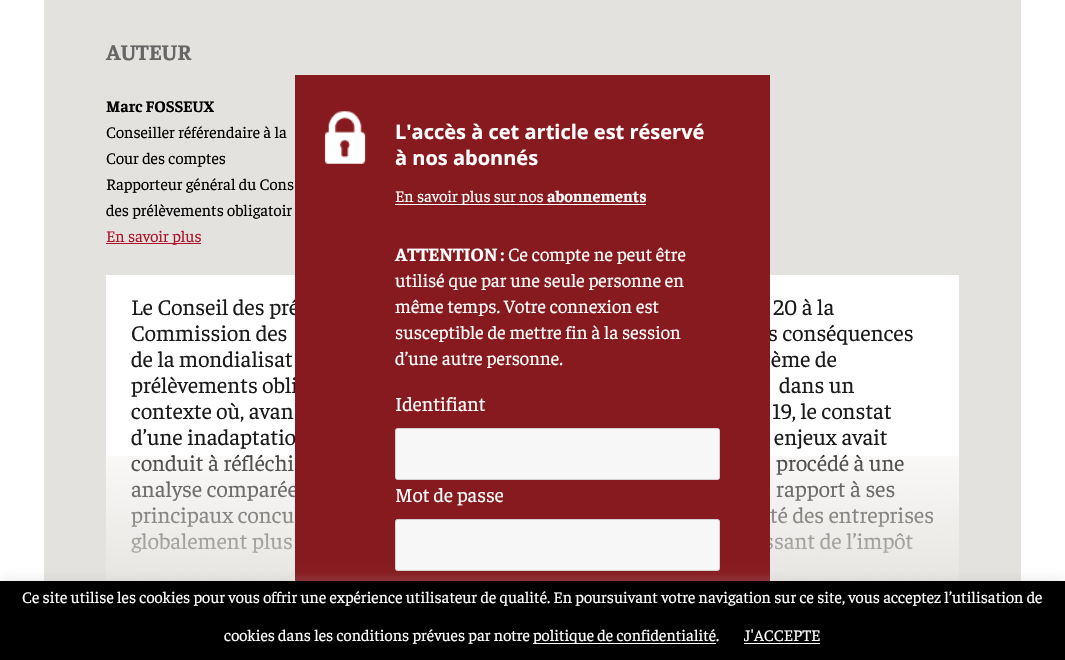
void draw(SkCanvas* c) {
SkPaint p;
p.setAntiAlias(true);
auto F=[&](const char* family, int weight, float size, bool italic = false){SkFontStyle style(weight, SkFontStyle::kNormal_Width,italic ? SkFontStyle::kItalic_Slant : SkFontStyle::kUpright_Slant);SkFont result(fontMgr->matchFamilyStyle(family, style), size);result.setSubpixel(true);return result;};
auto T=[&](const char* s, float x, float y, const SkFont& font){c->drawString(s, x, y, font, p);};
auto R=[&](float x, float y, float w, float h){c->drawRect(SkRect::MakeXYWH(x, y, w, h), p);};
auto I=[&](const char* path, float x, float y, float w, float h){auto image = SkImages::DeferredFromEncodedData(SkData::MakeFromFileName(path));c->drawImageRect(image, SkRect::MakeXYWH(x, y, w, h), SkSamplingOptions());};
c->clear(0xffffffff);
p.setColor(0xffe4e2de);
R(44,0,977,581);
auto f1 = F("Faustina",700,22.5);
p.setColor(0xff666666);
T("AUTEUR",106,60,f1);
auto f2 = F("Faustina",700,16.25);
p.setColor(0xff000000);
T("Marc FOSSEUX",106,112,f2);
auto f3 = F("Faustina",400,16.25);
T("Conseiller référendaire à la",106,138,f3);
T("Cour des comptes",106,164,f3);
T("Rapporteur général du Cons",106,190,f3);
T("des prélèvements obligatoir",106,216,f3);
p.setColor(0xffae172b);
R(106,243,95,1);
T("En savoir plus",106,242,f3);
p.setColor(0xffffffff);
R(106,275,853,306);
auto f4 = F("Faustina",400,22.5);
p.setColor(0xff1a1a1a);
T("Le Conseil des pré",131,315,f4);
T("s conséquences",768,341,f4);
T("prélèvements obli",131,393,f4);
T("d’une inadaptatio",131,445,f4);
T("analyse comparée",131,497,f4);
T("té des entreprises",770,523,f4);
T("ssant de l’impôt",764,549,f4);
T("conduit à réfléchi",131,471,f4);
T("procédé à une",776,471,f4);
T("rapport à ses",776,497,f4);
T("principaux concu",131,523,f4);
T("globalement plus",131,549,f4);
I("2.png",106,456,853,125);
p.setColor(0xff871a1f);
R(295,75,475,506);
I("1.png",324,111,42,53);
auto f5 = F("Open Sans",700,20);
p.setColor(0xffffffff);
T("L'accès à cet article est réservé",395,139,f5);
T("à nos abonnés",395,165,f5);
R(395,204,251,1);
T("En savoir plus sur nos",395,202,f3);
T("abonnements",547,202,f2);
auto f6 = F("Faustina",700,18.75);
T("ATTENTION :",395,261,f6);
auto f7 = F("Faustina",400,18.75);
T("Ce compte ne peut être",508,261,f7);
T("utilisé que par une seule personne en",395,287,f7);
T("même temps. Votre connexion est",395,313,f7);
T("susceptible de mettre fin à la session",395,339,f7);
T("d’une autre personne.",395,365,f7);
auto f8 = F("Faustina",400,20);
T("Identifiant",395,411,f8);
p.setColor(0xfff7f7f7);
c->drawRoundRect(SkRect::MakeXYWH(395.5,428.5,324,51),2,2,p);
p.setStroke(true);
p.setStrokeWidth(1);
p.setColor(0xffd1d1d1);
c->drawRoundRect(SkRect::MakeXYWH(395.5,428.5,324,51),2,2,p);
p.setStroke(false);
p.setColor(0xffffffff);
T("Mot de passe",395,502,f8);
p.setColor(0xfff7f7f7);
c->drawRoundRect(SkRect::MakeXYWH(395.5,519.5,324,51),2,2,p);
p.setStroke(true);
p.setColor(0xffd1d1d1);
c->drawRoundRect(SkRect::MakeXYWH(395.5,519.5,324,51),2,2,p);
p.setStroke(false);
p.setColor(0xff1a1a1a);
T("20 à la",773,315,f4);
T("Commission des",131,341,f4);
T("de la mondialisat",131,367,f4);
T("ème de",771,367,f4);
T("dans un",779,393,f4);
T("contexte où, avan",131,419,f4);
T("19, le constat",772,419,f4);
T("enjeux avait",774,445,f4);
p.setColor(0x4dacabab);
p.setMaskFilter(SkMaskFilter::MakeBlur(kNormal_SkBlurStyle, 6));
c->drawRect(SkRect::MakeXYWH(0,580,1065,79),p);
p.setMaskFilter(nullptr);
p.setColor(0xff000000);
R(0,581,1065,79);
p.setColor(0xffffffff);
T("Ce site utilise les cookies pour vous offrir une expérience utilisateur de qualité. En poursuivant votre navigation sur ce site, vous acceptez l’utilisation de",22,603,f3);
T("cookies dans les conditions prévues par notre",224,641,f3);
R(533,643,183,1);
T("politique de confidentialité.",533,641,f3);
T("J'ACCEPTE",744,641,f3);
R(744,643,76,1);
}
